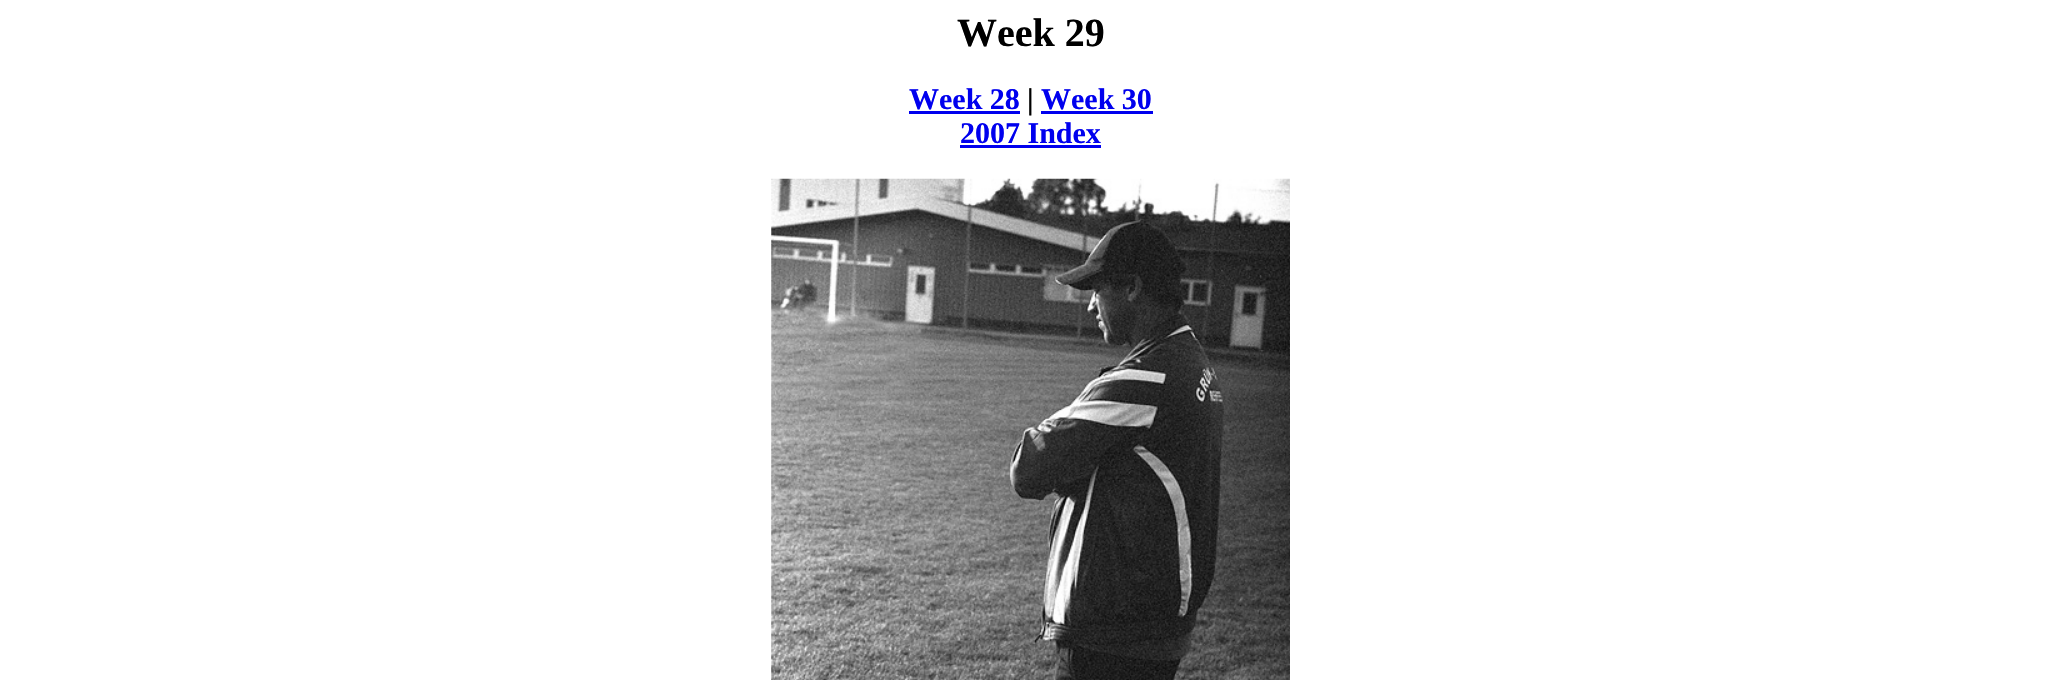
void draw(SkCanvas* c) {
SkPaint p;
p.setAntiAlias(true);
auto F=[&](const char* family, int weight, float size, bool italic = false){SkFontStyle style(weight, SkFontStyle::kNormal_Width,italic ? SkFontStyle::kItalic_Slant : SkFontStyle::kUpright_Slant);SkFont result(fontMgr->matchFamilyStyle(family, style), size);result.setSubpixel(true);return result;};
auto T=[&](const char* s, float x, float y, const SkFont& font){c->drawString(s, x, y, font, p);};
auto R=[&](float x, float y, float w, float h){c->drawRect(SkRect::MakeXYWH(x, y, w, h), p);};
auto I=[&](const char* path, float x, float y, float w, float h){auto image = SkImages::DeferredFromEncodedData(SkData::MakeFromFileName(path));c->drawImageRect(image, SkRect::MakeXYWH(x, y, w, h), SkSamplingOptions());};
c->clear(0xffffffff);
auto f1 = F("Liberation Serif",700,40);
p.setColor(0xff000000);
T("Week 29",957,46,f1);
auto f2 = F("Liberation Serif",700,30);
p.setColor(0xff0000ee);
T("Week 28",909,109,f2);
R(909,111,111,3);
p.setColor(0xff000000);
T("|",1027,109,f2);
p.setColor(0xff0000ee);
T("Week 30",1041,109,f2);
R(1041,111,112,3);
T("2007 Index",960,143,f2);
R(960,145,141,3);
I("1.png",771,178,519,502);
}
